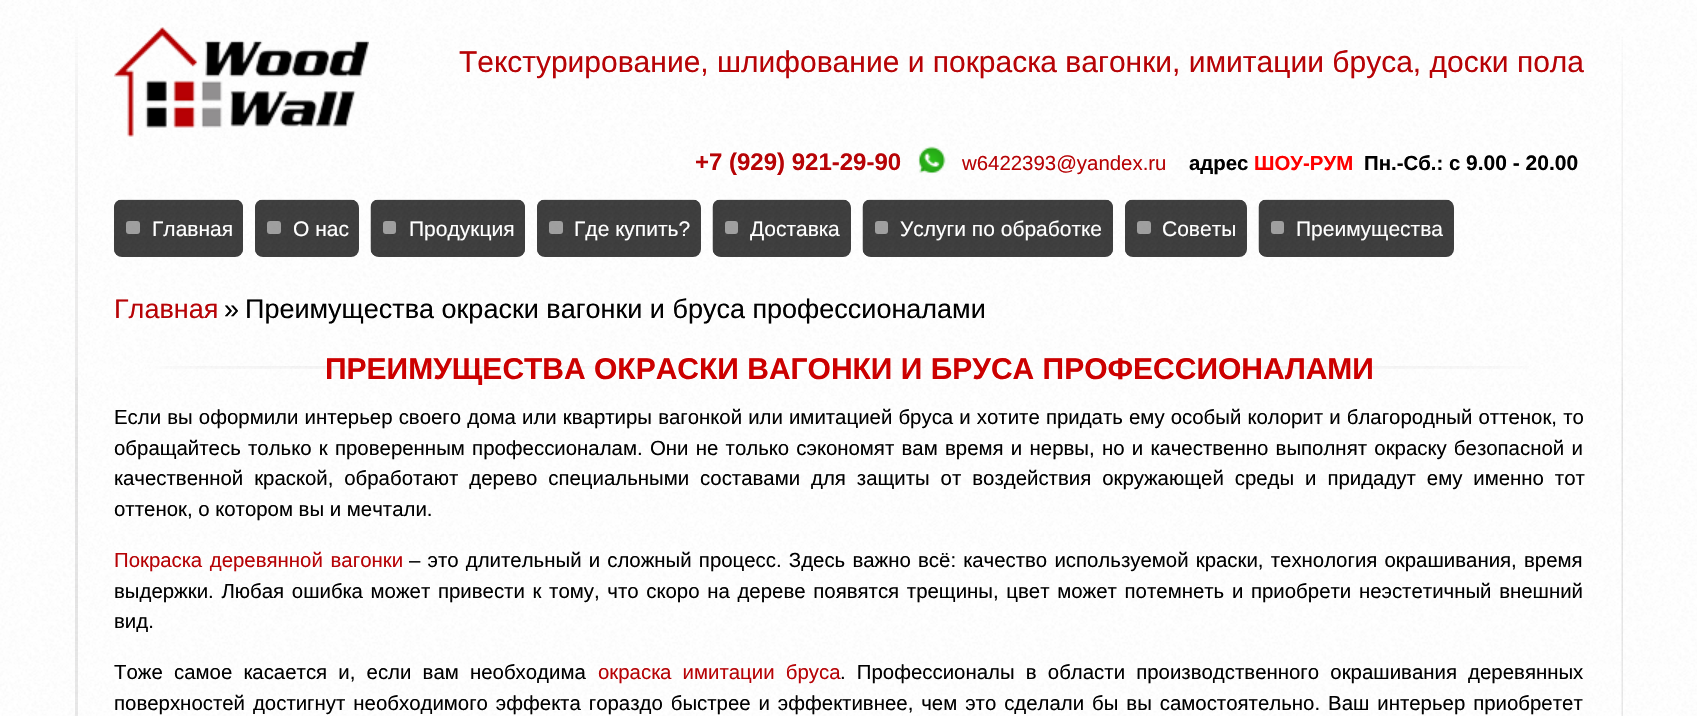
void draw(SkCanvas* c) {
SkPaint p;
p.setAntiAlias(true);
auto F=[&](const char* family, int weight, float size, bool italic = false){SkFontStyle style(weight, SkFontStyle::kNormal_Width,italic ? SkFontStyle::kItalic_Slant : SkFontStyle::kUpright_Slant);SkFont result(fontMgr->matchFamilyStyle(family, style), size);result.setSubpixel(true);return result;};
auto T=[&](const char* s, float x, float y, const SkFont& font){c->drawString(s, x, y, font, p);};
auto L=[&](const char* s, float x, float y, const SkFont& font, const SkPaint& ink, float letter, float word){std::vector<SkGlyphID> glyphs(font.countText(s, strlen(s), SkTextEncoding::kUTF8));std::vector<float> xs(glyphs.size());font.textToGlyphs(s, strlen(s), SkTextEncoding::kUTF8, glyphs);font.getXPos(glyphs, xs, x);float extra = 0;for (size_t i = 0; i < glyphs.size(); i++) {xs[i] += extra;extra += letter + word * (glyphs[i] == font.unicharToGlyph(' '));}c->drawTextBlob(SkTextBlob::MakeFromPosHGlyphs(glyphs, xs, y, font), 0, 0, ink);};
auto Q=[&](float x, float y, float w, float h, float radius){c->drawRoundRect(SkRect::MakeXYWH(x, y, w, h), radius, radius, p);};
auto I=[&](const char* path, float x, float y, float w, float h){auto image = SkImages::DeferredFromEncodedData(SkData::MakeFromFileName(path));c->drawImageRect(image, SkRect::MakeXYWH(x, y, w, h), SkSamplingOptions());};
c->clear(0xffffffff);
I("1.png",0,0,1697,716);
I("2.png",75,7,3,709);
I("3.png",1621,37,2,679);
I("4.png",114,27,255,110);
auto f1 = F("Liberation Sans",400,30);
p.setColor(0xffb70306);
T("Текстурирование, шлифование и покраска вагонки, имитации бруса, доски пола",459,72,f1);
auto f2 = F("Liberation Sans",700,24);
T("+7 (929) 921-29-90",695,170,f2);
I("5.png",918,146,28,29);
auto f3 = F("Liberation Sans",400,20.4);
T("w6422393@yandex.ru",962,170,f3);
auto f4 = F("Liberation Sans",700,20.4);
p.setColor(0xff000000);
T("адрес",1189,170,f4);
p.setColor(0xffff0000);
T("ШОУ-РУМ",1254,170,f4);
p.setColor(0xff000000);
T("Пн.-Сб.: с",1364,170,f4);
auto f5 = F("Liberation Sans",700,21);
T("9.00 - 20.00",1466,170,f5);
p.setColor(0xff404040);
Q(114,200,129,57,8);
I("6.png",114,199,129,57);
p.setColor(0x80ffffff);
Q(126,221,14,13,3);
auto f6 = F("Liberation Sans",400,21);
p.setColor(0xffffffff);
T("Главная",152,236,f6);
p.setColor(0xff404040);
Q(255,200,104,57,8);
I("7.png",255,199,104,57);
p.setColor(0x80ffffff);
Q(267,221,14,13,3);
p.setColor(0xffffffff);
T("О нас",293,236,f6);
p.setColor(0xff404040);
Q(371,200,154,57,8);
I("8.png",370,199,155,58);
p.setColor(0x80ffffff);
Q(383,221,13,13,3);
p.setColor(0xffffffff);
T("Продукция",409,236,f6);
p.setColor(0xff404040);
Q(537,200,164,57,8);
I("9.png",537,199,164,57);
p.setColor(0x80ffffff);
Q(549,221,14,13,3);
p.setColor(0xffffffff);
T("Где купить?",574,236,f6);
p.setColor(0xff404040);
Q(713,200,138,57,8);
I("10.png",712,199,139,58);
p.setColor(0x80ffffff);
Q(725,221,13,13,3);
p.setColor(0xffffffff);
T("Доставка",750,236,f6);
p.setColor(0xff404040);
Q(863,200,250,57,8);
I("11.png",862,199,251,58);
p.setColor(0x80ffffff);
Q(875,221,13,13,3);
p.setColor(0xffffffff);
T("Услуги по обработке",900,236,f6);
p.setColor(0xff404040);
Q(1125,200,122,57,8);
I("12.png",1125,199,122,57);
p.setColor(0x80ffffff);
Q(1137,221,14,13,3);
p.setColor(0xffffffff);
T("Советы",1162,236,f6);
p.setColor(0xff404040);
Q(1259,200,195,57,8);
I("13.png",1258,199,196,58);
p.setColor(0x80ffffff);
Q(1271,221,13,13,3);
p.setColor(0xffffffff);
T("Преимущества",1296,236,f6);
auto f7 = F("Liberation Sans",400,27);
p.setColor(0xffb70306);
T("Главная",114,318,f7);
p.setColor(0xff000000);
T("»",224,318,f7);
T("Преимущества окраски вагонки и бруса профессионалами",245,318,f7);
I("14.png",145,366,1384,3);
auto f8 = F("Liberation Sans",700,30);
p.setColor(0xffcc0000);
T("ПРЕИМУЩЕСТВА ОКРАСКИ ВАГОНКИ И БРУСА ПРОФЕССИОНАЛАМИ",325,379,f8);
p.setColor(0xff000000);
L("Если вы оформили интерьер своего дома или квартиры вагонкой или имитацией бруса и хотите придать ему особый колорит и благородный оттенок, то",114,424,f3,p,0,.45);
L("обращайтесь только к проверенным профессионалам. Они не только сэкономят вам время и нервы, но и качественно выполнят окраску безопасной и",114,455,f3,p,0,1.6);
L("качественной краской, обработают дерево специальными составами для защиты от воздействия окружающей среды и придадут ему именно тот",114,485,f3,p,0,5.25);
T("оттенок, о котором вы и мечтали.",114,516,f3);
p.setColor(0xffb70306);
L("Покраска деревянной вагонки",114,567,f3,p,0,2);
p.setColor(0xff000000);
L("– это длительный и сложный процесс. Здесь важно всё: качество используемой краски, технология окрашивания, время",409,567,f3,p,0,1.5);
L("выдержки. Любая ошибка может привести к тому, что скоро на дереве появятся трещины, цвет может потемнеть и приобрети неэстетичный внешний",114,598,f3,p,0,2);
T("вид.",114,628,f3);
L("Тоже самое касается и, если вам необходима",114,679,f3,p,0,5.5);
p.setColor(0xffb70306);
L("окраска имитации бруса",598,679,f3,p,0,5.5);
p.setColor(0xff000000);
L(". Профессионалы в области производственного окрашивания деревянных",840,679,f3,p,0,5.5);
L("поверхностей достигнут необходимого эффекта гораздо быстрее и эффективнее, чем это сделали бы вы самостоятельно. Ваш интерьер приобретет",114,710,f3,p,0,2.25);
}
